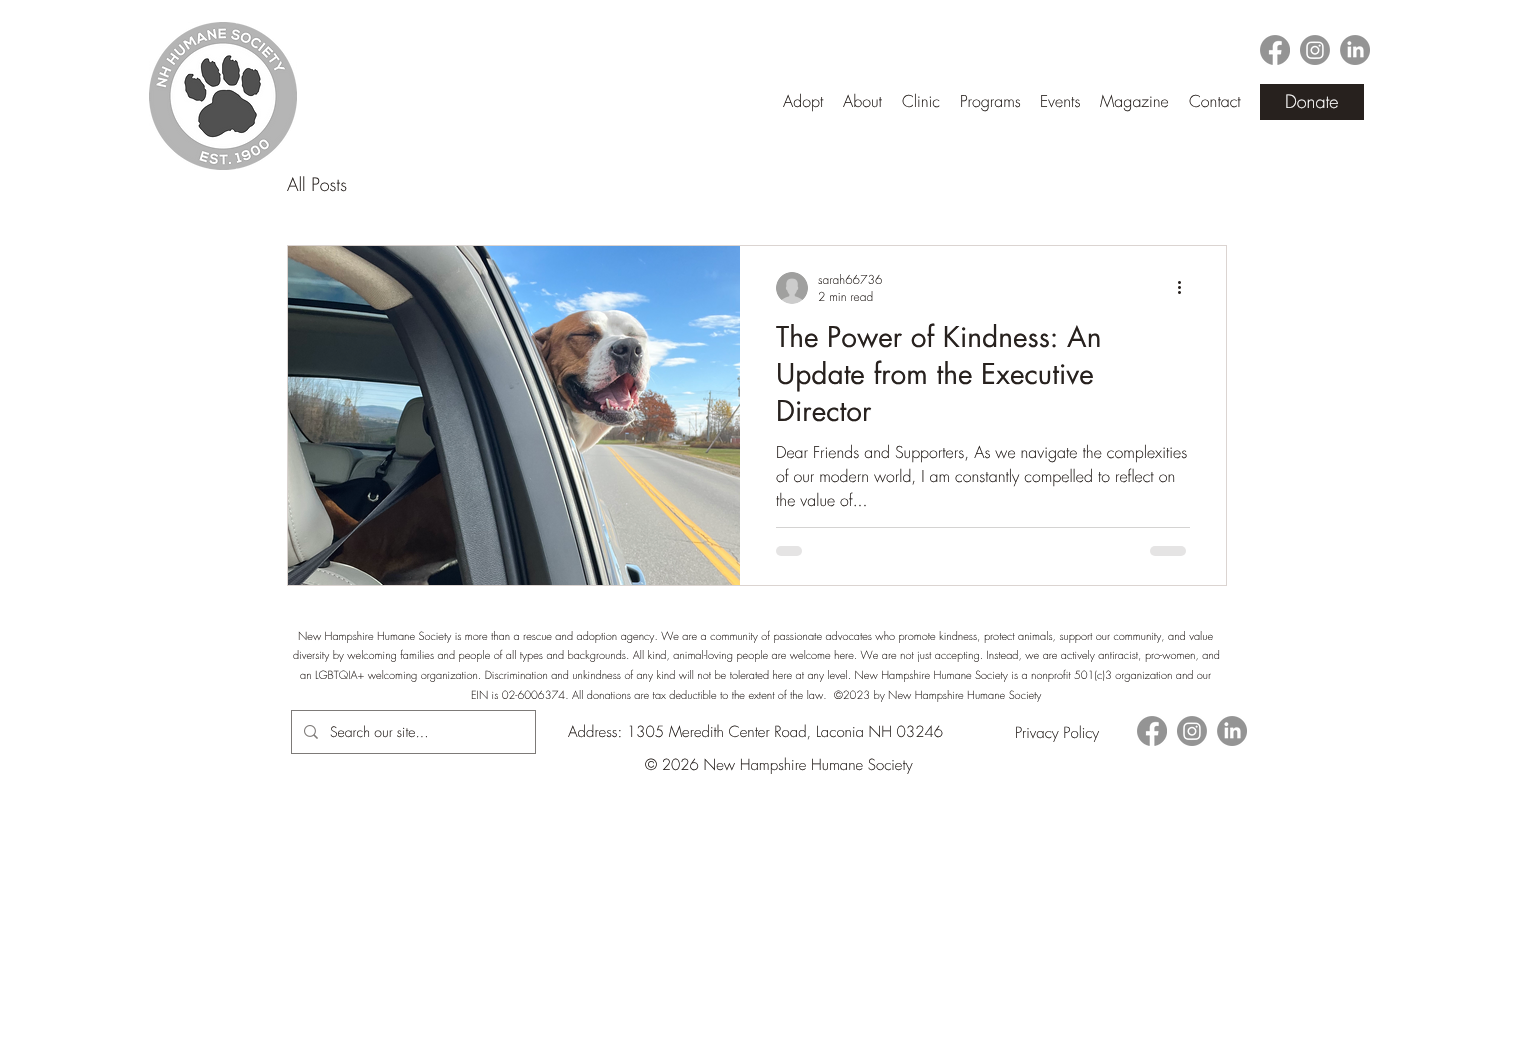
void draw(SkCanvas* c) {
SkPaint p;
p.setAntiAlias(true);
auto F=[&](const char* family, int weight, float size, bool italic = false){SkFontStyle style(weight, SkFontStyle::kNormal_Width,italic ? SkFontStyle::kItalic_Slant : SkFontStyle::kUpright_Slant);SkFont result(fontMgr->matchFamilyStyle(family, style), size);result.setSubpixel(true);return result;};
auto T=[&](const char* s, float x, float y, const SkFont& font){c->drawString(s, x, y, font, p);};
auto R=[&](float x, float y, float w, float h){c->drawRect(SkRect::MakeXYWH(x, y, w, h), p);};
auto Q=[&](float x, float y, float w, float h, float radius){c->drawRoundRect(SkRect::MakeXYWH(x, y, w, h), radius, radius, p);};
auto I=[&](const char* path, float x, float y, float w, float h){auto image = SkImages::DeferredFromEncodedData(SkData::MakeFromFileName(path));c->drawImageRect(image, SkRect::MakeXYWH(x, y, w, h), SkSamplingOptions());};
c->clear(0xffffffff);
I("1.png",149,22,148,148);
I("2.png",1260,35,30,30);
I("3.png",1300,35,30,30);
I("4.png",1340,35,30,30);
auto f1 = F("futura",300,16);
p.setColor(0xff27211e);
T("Adopt",783,107,f1);
T("About",843,107,f1);
T("Clinic",902,107,f1);
T("Programs",960,107,f1);
T("Events",1040,107,f1);
T("Magazine",1100,107,f1);
T("Contact",1189,107,f1);
R(1260,84,104,36);
auto f2 = F("futura",300,18);
p.setColor(0xffffffff);
T("Donate",1285,108,f2);
p.setColor(0xff27211e);
T("All Posts",287,191,f2);
p.setStroke(true);
p.setStrokeWidth(1);
p.setColor(0xffdbd4d1);
c->drawRect(SkRect::MakeXYWH(287.5,245.5,939,340),p);
I("5.png",288,246,452,339);
I("6.png",776,272,32,32);
auto f3 = F("futura",300,12);
p.setStroke(false);
p.setColor(0xff27211e);
T("sarah66736",818,284,f3);
T("2 min read",818,301,f3);
I("7.png",1178,281,3,13);
auto f4 = F("futura",400,28);
T("The Power of Kindness: An",776,347,f4);
T("Update from the Executive",776,384,f4);
T("Director",776,421,f4);
T("Dear Friends and Supporters, As we navigate the complexities",776,458,f1);
T("of our modern world, I am constantly compelled to reflect on",776,482,f1);
T("the value of...",776,506,f1);
p.setColor(0xffd4d3d2);
R(776,527,414,1);
p.setColor(0xffe5e4e4);
Q(776,546,26,10,5);
Q(1150,546,36,10,5);
auto f5 = F("futura",300,11);
p.setColor(0xff27211e);
T("New Hampshire Humane Society is more than a rescue and adoption agency. We are a community of passionate advocates who promote kindness, protect animals, support our community, and value",298,640,f5);
T("diversity by welcoming families and people of all types and backgrounds. All kind, animal-loving people are welcome here. We are not just accepting. Instead, we are actively antiracist, pro-women, and",293,659,f5);
T("an LGBTQIA+ welcoming organization. Discrimination and unkindness of any kind will not be tolerated here at any level. New Hampshire Humane Society is a nonprofit 501(c)3 organization and our",300,679,f5);
T("EIN is 02-6006374. All donations are tax deductible to the extent of the law.",471,699,f5);
T("©2023 by New Hampshire Humane Society",834,699,f5);
p.setStroke(true);
p.setColor(0xff7d7a78);
c->drawRect(SkRect::MakeXYWH(291.5,710.5,244,43),p);
I("8.png",304,725,14,14);
auto f6 = F("futura",300,14);
p.setStroke(false);
p.setColor(0xff27211e);
T("Search our site...",330,737,f6);
auto f7 = F("futura",300,15);
T("Address: 1305 Meredith Center Road, Laconia NH 03246",568,737,f7);
T("Privacy Policy",1015,738,f7);
I("2.png",1137,716,30,30);
I("3.png",1177,716,30,30);
I("4.png",1217,716,30,30);
T("© 2026 New Hampshire Humane Society",645,770,f7);
}
